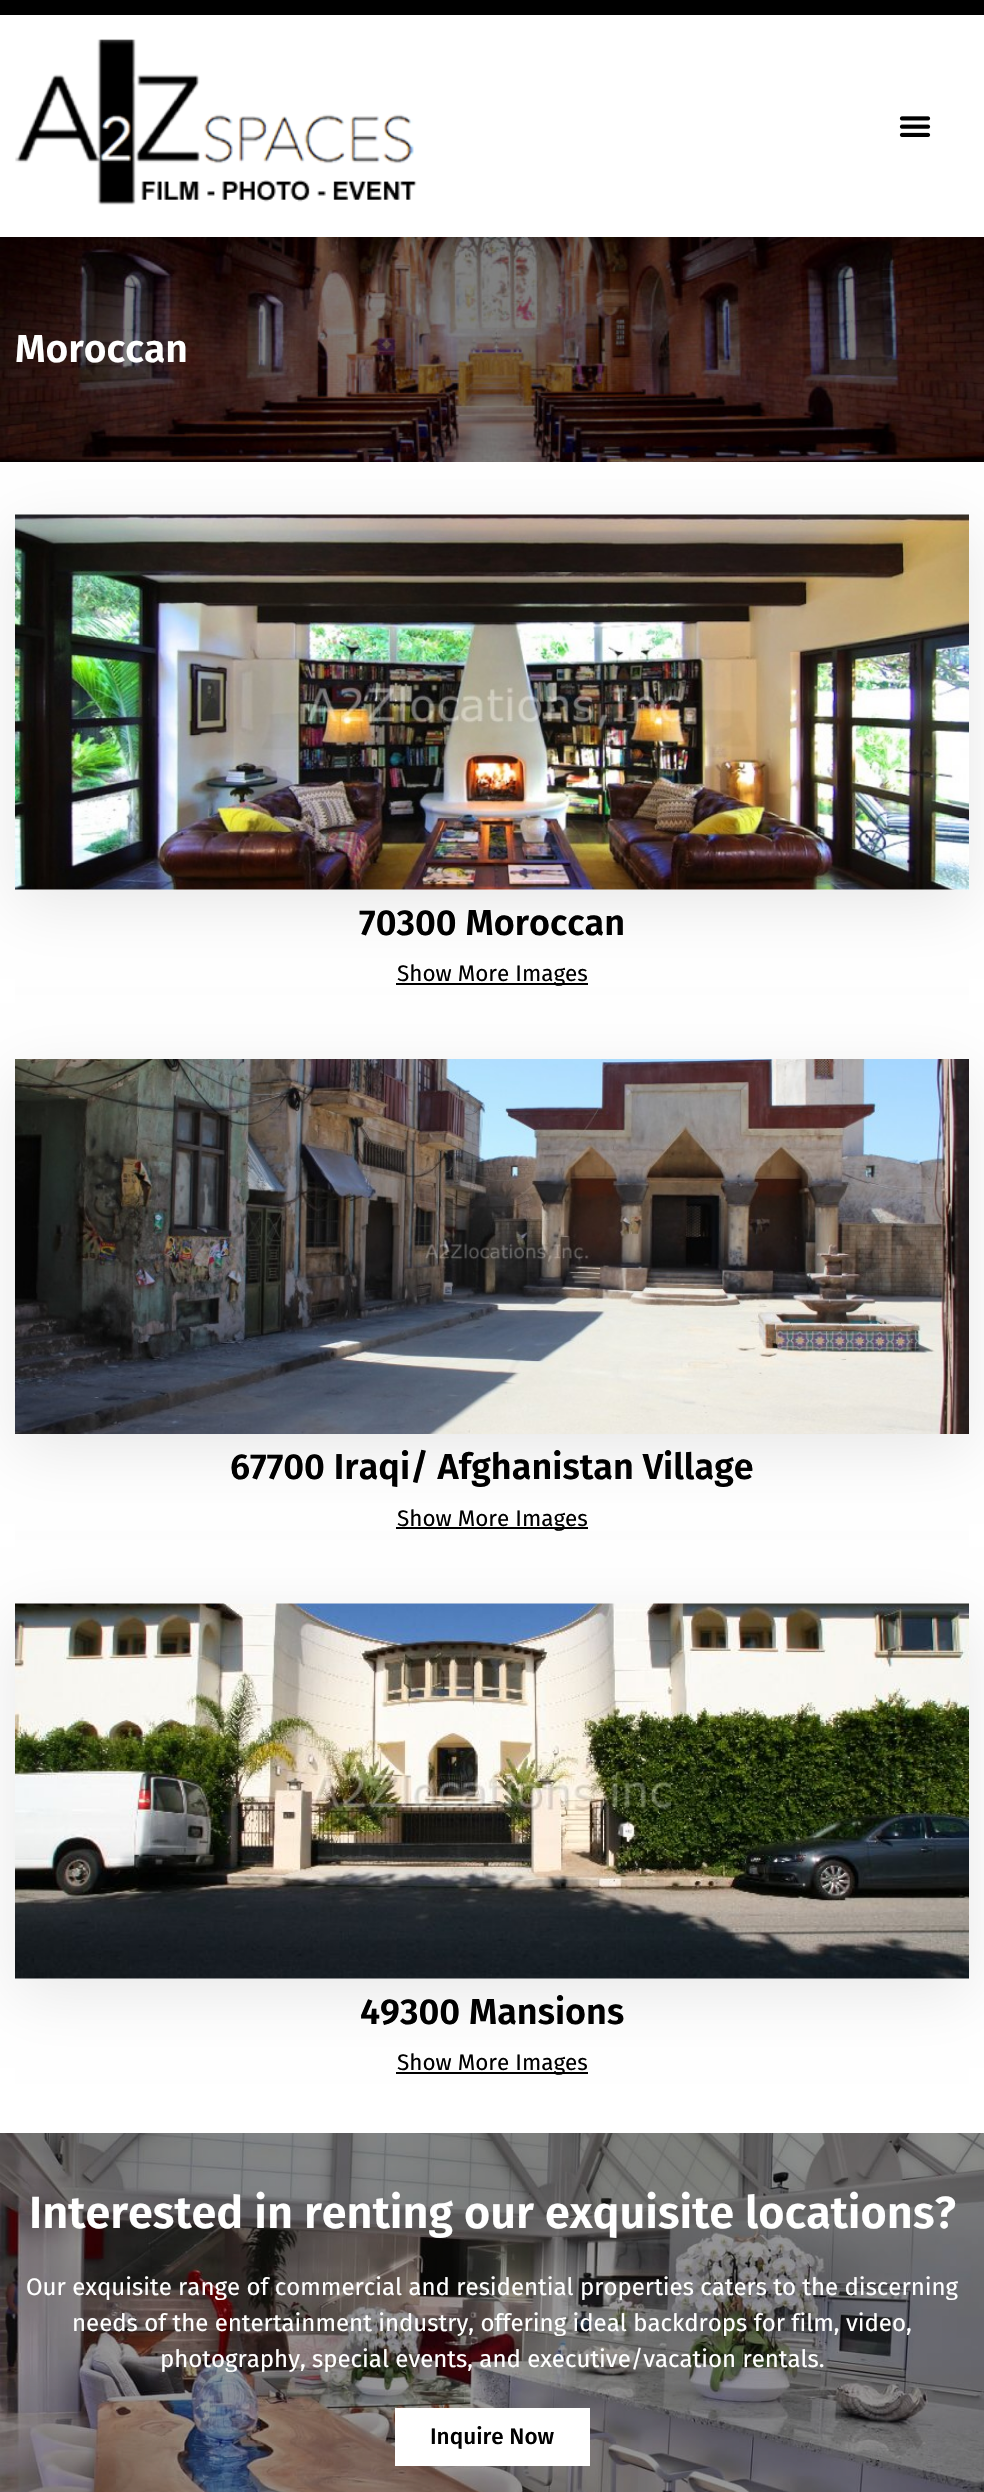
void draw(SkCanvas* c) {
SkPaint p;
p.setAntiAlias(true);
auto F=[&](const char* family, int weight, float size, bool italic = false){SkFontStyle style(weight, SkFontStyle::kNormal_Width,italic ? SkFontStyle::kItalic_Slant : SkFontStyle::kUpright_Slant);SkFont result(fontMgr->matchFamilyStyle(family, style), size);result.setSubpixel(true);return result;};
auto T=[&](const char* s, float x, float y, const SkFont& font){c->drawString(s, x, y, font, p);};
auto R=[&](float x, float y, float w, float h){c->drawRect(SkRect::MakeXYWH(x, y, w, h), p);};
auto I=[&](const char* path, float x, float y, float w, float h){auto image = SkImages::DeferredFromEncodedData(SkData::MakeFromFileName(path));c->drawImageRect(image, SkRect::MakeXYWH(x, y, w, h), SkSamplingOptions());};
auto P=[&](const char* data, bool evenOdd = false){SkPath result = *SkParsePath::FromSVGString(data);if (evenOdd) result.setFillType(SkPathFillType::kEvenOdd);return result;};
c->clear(0xffffffff);
p.setColor(0xff000000);
R(0,0,984,15);
I("3.png",0,237,984,225);
c->save();
c->clipPath(P("M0 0h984v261h-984zm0 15h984v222h-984z",true),true);
p.setColor(0x30000000);
p.setMaskFilter(SkMaskFilter::MakeBlur(kNormal_SkBlurStyle, 7.5));
c->drawRect(SkRect::MakeXYWH(0,15,984,222),p);
p.setMaskFilter(nullptr);
c->restore();
I("1.png",15,39,402,166);
I("2.png",899,116,32,21);
auto f1 = F("Fira Sans",600,39);
p.setColor(0xffffffff);
T("Moroccan",15,362,f1);
p.setColor(0x17000000);
p.setMaskFilter(SkMaskFilter::MakeBlur(kNormal_SkBlurStyle, 30));
c->drawRect(SkRect::MakeXYWH(15,531,954,375),p);
p.setMaskFilter(nullptr);
I("4.png",15,514,954,376);
auto f2 = F("Fira Sans",600,36);
p.setColor(0xff000000);
T("70300 Moroccan",359,935,f2);
R(396,983,192,2);
auto f3 = F("Fira Sans",400,22.5);
T("Show More Images",397,981,f3);
p.setColor(0x17000000);
p.setMaskFilter(SkMaskFilter::MakeBlur(kNormal_SkBlurStyle, 30));
c->drawRect(SkRect::MakeXYWH(15,1076,954,375),p);
p.setMaskFilter(nullptr);
I("5.png",15,1059,954,375);
p.setColor(0xff000000);
T("67700 Iraqi/ Afghanistan Village",230,1479,f2);
R(396,1527,192,2);
T("Show More Images",397,1526,f3);
p.setColor(0x17000000);
p.setMaskFilter(SkMaskFilter::MakeBlur(kNormal_SkBlurStyle, 30));
c->drawRect(SkRect::MakeXYWH(15,1620,954,375),p);
p.setMaskFilter(nullptr);
I("6.png",15,1603,954,376);
p.setColor(0xff000000);
T("49300 Mansions",360,2024,f2);
R(396,2072,192,2);
T("Show More Images",397,2070,f3);
I("7.png",0,2133,984,359);
auto f4 = F("Fira Sans",600,45);
p.setColor(0xffffffff);
T("Interested in renting our exquisite locations?",29,2228,f4);
auto f5 = F("Fira Sans",400,24);
T("Our exquisite range of commercial and residential properties caters to the discerning",26,2295,f5);
T("needs of the entertainment industry, offering ideal backdrops for film, video,",72,2331,f5);
T("photography, special events, and executive/vacation rentals.",160,2367,f5);
R(395,2408,195,58);
auto f6 = F("Fira Sans",500,22.5);
p.setColor(0xff000000);
T("Inquire Now",430,2444,f6);
}
